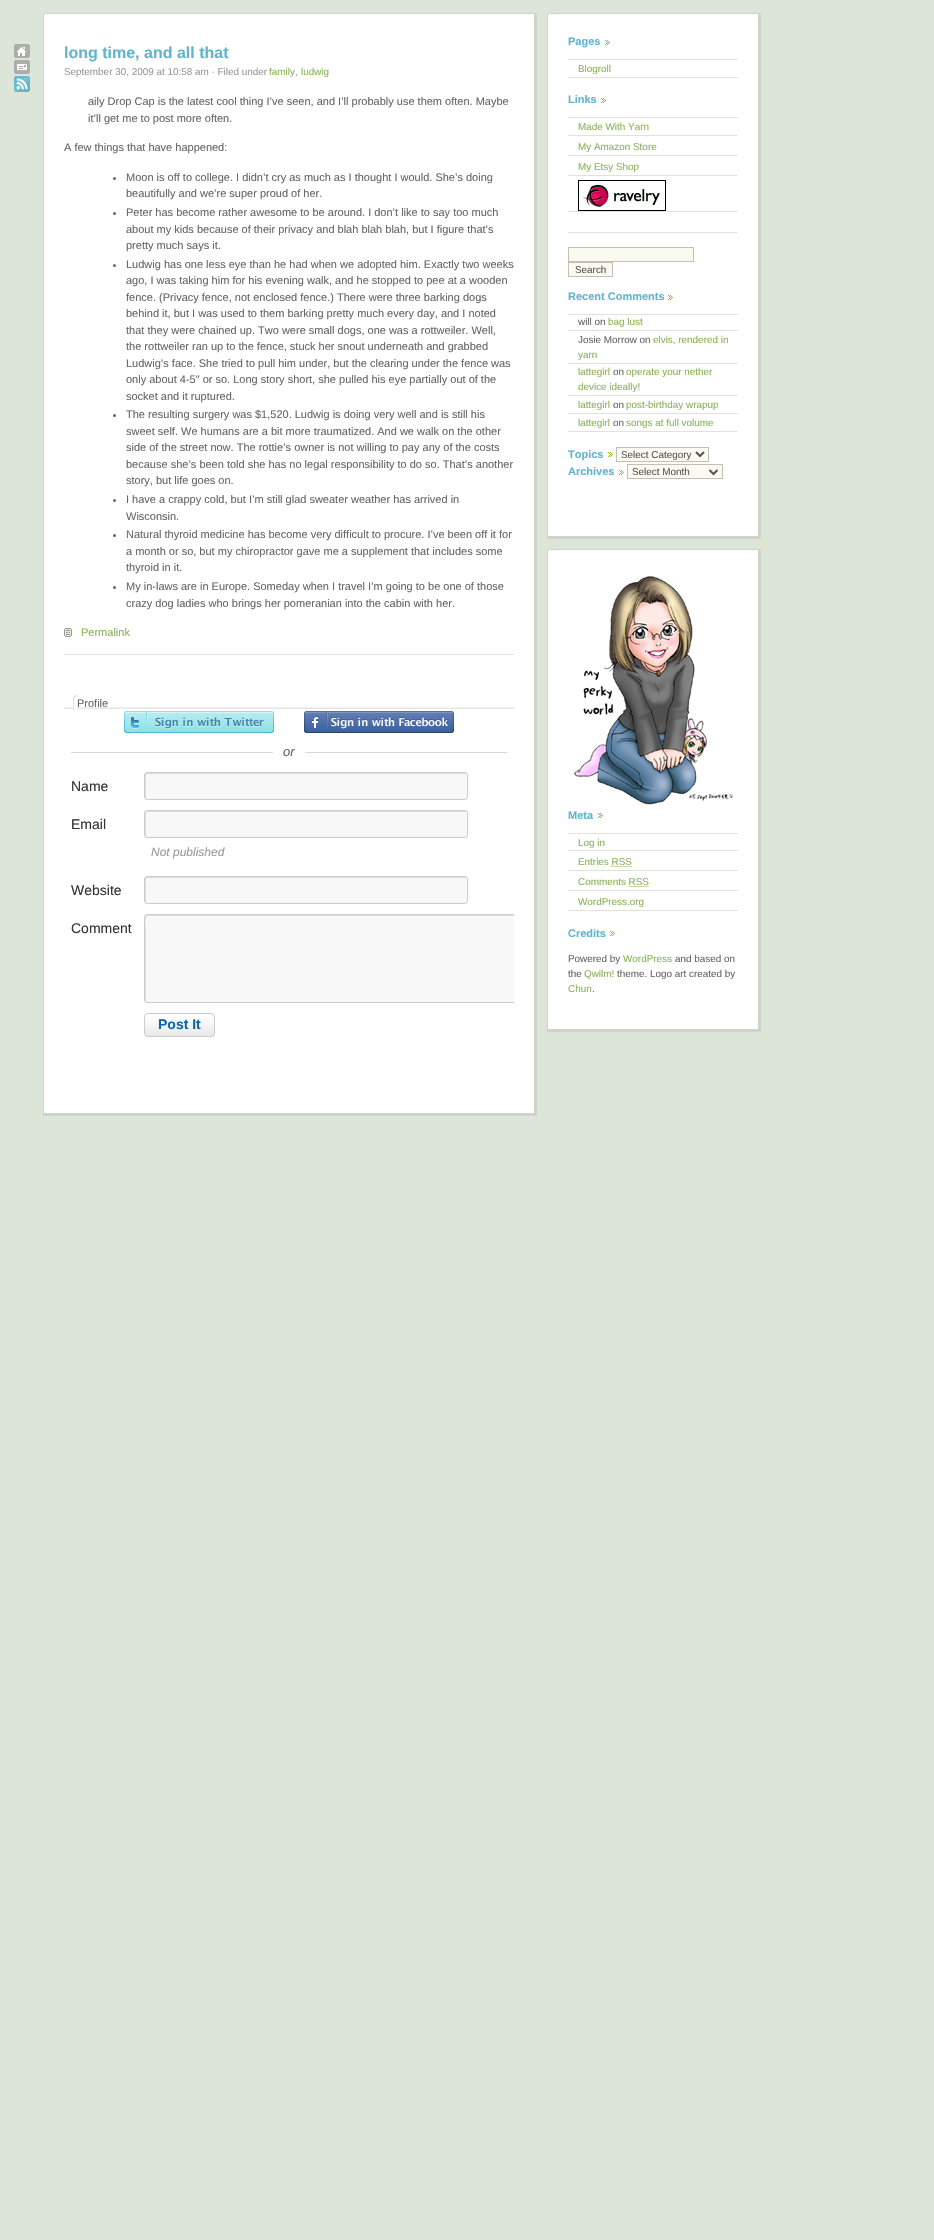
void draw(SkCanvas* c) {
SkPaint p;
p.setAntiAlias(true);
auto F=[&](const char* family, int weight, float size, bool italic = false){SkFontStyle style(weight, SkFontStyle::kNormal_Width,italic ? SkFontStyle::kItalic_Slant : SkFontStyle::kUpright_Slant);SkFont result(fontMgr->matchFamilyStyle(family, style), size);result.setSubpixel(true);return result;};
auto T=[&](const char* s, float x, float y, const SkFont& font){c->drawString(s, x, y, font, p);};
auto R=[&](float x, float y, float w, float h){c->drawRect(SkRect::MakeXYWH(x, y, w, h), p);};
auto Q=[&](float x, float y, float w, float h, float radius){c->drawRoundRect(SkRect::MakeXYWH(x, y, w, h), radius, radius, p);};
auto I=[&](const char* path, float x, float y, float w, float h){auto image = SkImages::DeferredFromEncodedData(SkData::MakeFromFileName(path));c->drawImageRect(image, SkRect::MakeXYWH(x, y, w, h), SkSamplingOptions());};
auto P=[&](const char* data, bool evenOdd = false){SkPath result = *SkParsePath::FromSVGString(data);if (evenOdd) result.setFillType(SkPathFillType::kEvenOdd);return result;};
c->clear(0xffdde5d9);
I("1.png",14,44,16,14);
I("2.png",14,60,16,14);
I("3.png",14,76,16,16);
p.setColor(0xffffffff);
R(44,14,490,1099);
p.setColor(0xffced4ca);
R(43,13,494,1);
R(534,13,3,1103);
R(43,1113,494,3);
R(43,13,1,1103);
p.setColor(0xffdee4da);
R(64,654,450,1);
auto f1 = F("Liberation Sans",700,16);
p.setColor(0xff63b4cd);
T("long time, and all that",64,58,f1);
auto f2 = F("Liberation Sans",400,9.9);
p.setColor(0xff999999);
T("September 30, 2009 at 10:58 am · Filed under",64,75,f2);
p.setColor(0xff8ab459);
T("family",269,75,f2);
p.setColor(0xff999999);
T(",",295,75,f2);
p.setColor(0xff8ab459);
T("ludwig",301,75,f2);
auto f3 = F("Liberation Sans",400,11);
p.setColor(0xff666666);
T("aily Drop Cap is the latest cool thing I’ve seen, and I’ll probably use them often. Maybe",88,105,f3);
T("it’ll get me to post more often.",88,122,f3);
T("A few things that have happened:",64,151,f3);
c->drawCircle(114.5,178.5,1.5,p);
T("Moon is off to college. I didn’t cry as much as I thought I would. She’s doing",126,181,f3);
T("beautifully and we’re super proud of her.",126,197,f3);
c->drawCircle(114.5,213.5,1.5,p);
T("Peter has become rather awesome to be around. I don’t like to say too much",126,216,f3);
T("about my kids because of their privacy and blah blah blah, but I figure that’s",126,233,f3);
T("pretty much says it.",126,249,f3);
c->drawCircle(114.5,265.5,1.5,p);
T("Ludwig has one less eye than he had when we adopted him. Exactly two weeks",126,268,f3);
T("ago, I was taking him for his evening walk, and he stopped to pee at a wooden",126,284,f3);
T("fence. (Privacy fence, not enclosed fence.) There were three barking dogs",126,301,f3);
T("behind it, but I was used to them barking pretty much every day, and I noted",126,317,f3);
T("that they were chained up. Two were small dogs, one was a rottweiler. Well,",126,334,f3);
T("the rottweiler ran up to the fence, stuck her snout underneath and grabbed",126,350,f3);
T("Ludwig’s face. She tried to pull him under, but the clearing under the fence was",126,367,f3);
T("only about 4-5″ or so. Long story short, she pulled his eye partially out of the",126,383,f3);
T("socket and it ruptured.",126,400,f3);
c->drawCircle(114.5,415.5,1.5,p);
T("The resulting surgery was $1,520. Ludwig is doing very well and is still his",126,418,f3);
T("sweet self. We humans are a bit more traumatized. And we walk on the other",126,435,f3);
T("side of the street now. The rottie’s owner is not willing to pay any of the costs",126,451,f3);
T("because she’s been told she has no legal responsibility to do so. That’s another",126,468,f3);
T("story, but life goes on.",126,484,f3);
c->drawCircle(114.5,500.5,1.5,p);
T("I have a crappy cold, but I’m still glad sweater weather has arrived in",126,503,f3);
T("Wisconsin.",126,520,f3);
c->drawCircle(114.5,535.5,1.5,p);
T("Natural thyroid medicine has become very difficult to procure. I’ve been off it for",126,538,f3);
T("a month or so, but my chiropractor gave me a supplement that includes some",126,555,f3);
T("thyroid in it.",126,571,f3);
c->drawCircle(114.5,587.5,1.5,p);
T("My in-laws are in Europe. Someday when I travel I’m going to be one of those",126,590,f3);
T("crazy dog ladies who brings her pomeranian into the cabin with her.",126,607,f3);
I("4.png",64,628,8,9);
p.setColor(0xff8ab459);
T("Permalink",81,636,f3);
I("5.png",64,695,450,16);
p.setColor(0xff666666);
T("Profile",77,707,f3);
I("6.png",124,711,150,22);
I("7.png",304,711,150,22);
p.setColor(0xffd7d7d7);
R(71,752,436,1);
p.setColor(0xffffffff);
R(273,752,32,1);
auto f4 = F("Liberation Sans",400,13,true);
p.setColor(0xff666666);
T("or",283,756,f4);
auto f5 = F("Liberation Sans",400,14);
p.setColor(0xff333333);
T("Name",71,791,f5);
p.setColor(0xfff8f8f8);
Q(145,773,322,26,2);
p.setColor(0x1a000000);
c->drawPath(P("M148 774h319l-2-1h-318l-2 1v24l1 1v-19c0-2-1-6 2-6z"),p);
p.setStroke(true);
p.setStrokeWidth(1);
p.setColor(0xffcccccc);
c->drawRoundRect(SkRect::MakeXYWH(144.5,772.5,323,27),2.5,2.5,p);
p.setStroke(false);
p.setColor(0xff333333);
T("Email",71,829,f5);
p.setColor(0xfff8f8f8);
Q(145,811,322,26,2);
p.setColor(0x1a000000);
c->drawPath(P("M148 812h319l-2-1h-318l-2 1v24l1 1v-19c0-2-1-6 2-6z"),p);
p.setStroke(true);
p.setColor(0xffcccccc);
c->drawRoundRect(SkRect::MakeXYWH(144.5,810.5,323,27),2.5,2.5,p);
auto f6 = F("Liberation Sans",400,12,true);
p.setStroke(false);
p.setColor(0xff999999);
T("Not published",151,856,f6);
p.setColor(0xff333333);
T("Website",71,895,f5);
p.setColor(0xfff8f8f8);
Q(145,877,322,26,2);
p.setColor(0x1a000000);
c->drawPath(P("M148 878h319l-2-1h-318l-2 1v24l1 1v-19c0-2-1-6 2-6z"),p);
p.setStroke(true);
p.setColor(0xffcccccc);
c->drawRoundRect(SkRect::MakeXYWH(144.5,876.5,323,27),2.5,2.5,p);
p.setStroke(false);
p.setColor(0xff333333);
T("Comment",71,933,f5);
p.setColor(0xfff8f8f8);
c->drawPath(P("M147 915h367v87h-367c-1 0-2-1-2-2v-83c0-1 1-2 2-2z"),p);
c->save();
c->clipRect(SkRect::MakeXYWH(64,914,450,89));
p.setColor(0xffdfdfdf);
c->drawPath(P("M148 916h375c0 0-1-1-2-1h-374c-1 0-2 1-2 2v83c0 1 1 2 1 2v-70c0-4-2-16 2-16z"),p);
p.setStroke(true);
p.setColor(0xffcccccc);
c->drawRoundRect(SkRect::MakeXYWH(144.5,914.5,379,88),2.5,2.5,p);
c->restore();
I("8.png",145,1014,70,23);
c->drawRoundRect(SkRect::MakeXYWH(144.5,1013.5,70,23),3.5,3.5,p);
auto f7 = F("Liberation Sans",700,14);
p.setStroke(false);
p.setColor(0xff0867ab);
T("Post It",158,1029,f7);
p.setColor(0xffffffff);
R(548,14,210,522);
p.setColor(0xffced4ca);
R(547,13,214,1);
R(758,13,3,526);
R(547,536,214,3);
R(547,13,1,526);
auto f8 = F("Liberation Sans",700,11);
p.setColor(0xff63b4cd);
T("Pages",568,45,f8);
I("9.png",605,40,5,5);
p.setColor(0xffdee4da);
R(568,59,170,1);
R(568,77,170,1);
p.setColor(0xff8ab459);
T("Blogroll",578,72,f2);
p.setColor(0xff63b4cd);
T("Links",568,103,f8);
I("9.png",601,98,5,5);
p.setColor(0xffdee4da);
R(568,117,170,1);
R(568,135,170,1);
p.setColor(0xff8ab459);
T("Made With Yarn",578,130,f2);
p.setColor(0xffdee4da);
R(568,155,170,1);
p.setColor(0xff8ab459);
T("My Amazon Store",578,150,f2);
p.setColor(0xffdee4da);
R(568,175,170,1);
p.setColor(0xff8ab459);
T("My Etsy Shop",578,170,f2);
p.setColor(0xffdee4da);
R(568,211,170,1);
I("10.png",578,180,88,31);
R(568,232,170,1);
p.setColor(0xfffafaf0);
c->drawRect(SkRect::MakeXYWH(568.5,247.5,125,14),p);
p.setStroke(true);
p.setColor(0xffc1c0b5);
c->drawRect(SkRect::MakeXYWH(568.5,247.5,125,14),p);
p.setStroke(false);
p.setColor(0xfffafaf0);
c->drawRect(SkRect::MakeXYWH(568.5,262.5,44,14),p);
p.setStroke(true);
p.setColor(0xffc1c0b5);
c->drawRect(SkRect::MakeXYWH(568.5,262.5,44,14),p);
p.setStroke(false);
p.setColor(0xff555555);
T("Search",575,273,f2);
p.setColor(0xff63b4cd);
T("Recent Comments",568,300,f8);
I("9.png",668,295,5,5);
p.setColor(0xffdee4da);
R(568,314,170,1);
R(568,330,170,1);
p.setColor(0xff666666);
T("will on",578,325,f2);
p.setColor(0xff8ab459);
T("bag lust",608,325,f2);
p.setColor(0xffdee4da);
R(568,363,170,1);
p.setColor(0xff666666);
T("Josie Morrow on",578,343,f2);
p.setColor(0xff8ab459);
T("elvis, rendered in",653,343,f2);
T("yarn",578,358,f2);
p.setColor(0xffdee4da);
R(568,395,170,1);
p.setColor(0xff8ab459);
T("lattegirl",578,375,f2);
p.setColor(0xff666666);
T("on",613,375,f2);
p.setColor(0xff8ab459);
T("operate your nether",626,375,f2);
T("device ideally!",578,390,f2);
p.setColor(0xffdee4da);
R(568,413,170,1);
p.setColor(0xff8ab459);
T("lattegirl",578,408,f2);
p.setColor(0xff666666);
T("on",613,408,f2);
p.setColor(0xff8ab459);
T("post-birthday wrapup",626,408,f2);
p.setColor(0xffdee4da);
R(568,431,170,1);
p.setColor(0xff8ab459);
T("lattegirl",578,426,f2);
p.setColor(0xff666666);
T("on",613,426,f2);
p.setColor(0xff8ab459);
T("songs at full volume",626,426,f2);
p.setColor(0xff63b4cd);
T("Topics",568,458,f8);
I("9.png",608,452,5,5);
p.setColor(0xfffafaf0);
c->drawRect(SkRect::MakeXYWH(616.5,447.5,92,14),p);
p.setStroke(true);
p.setColor(0xffc1c0b5);
c->drawRect(SkRect::MakeXYWH(616.5,447.5,92,14),p);
p.setStrokeWidth(2);
p.setColor(0xff555555);
c->drawPath(P("M696 452l4 4l4-4"),p);
p.setStroke(false);
T("Select Category",621,458,f2);
p.setColor(0xff63b4cd);
T("Archives",568,475,f8);
I("9.png",619,470,5,5);
p.setColor(0xfffafaf0);
c->drawRect(SkRect::MakeXYWH(627.5,464.5,95,14),p);
p.setStroke(true);
p.setStrokeWidth(1);
p.setColor(0xffc1c0b5);
c->drawRect(SkRect::MakeXYWH(627.5,464.5,95,14),p);
p.setStrokeWidth(2);
p.setColor(0xff555555);
c->drawPath(P("M709.5 470l4 4l4-4"),p);
p.setStroke(false);
T("Select Month",632,475,f2);
p.setColor(0xffffffff);
R(548,550,210,479);
p.setColor(0xffced4ca);
R(547,549,214,1);
R(758,549,3,483);
R(547,1029,214,3);
R(547,549,1,483);
I("11.png",574,576,164,229);
p.setColor(0xff63b4cd);
T("Meta",568,819,f8);
I("9.png",598,813,5,5);
p.setColor(0xffdee4da);
R(568,833,170,1);
R(568,850,170,1);
p.setColor(0xff8ab459);
T("Log in",578,846,f2);
p.setColor(0xffdee4da);
R(568,870,170,1);
p.setColor(0xff8ab459);
T("Entries RSS",578,865,f2);
p.setStroke(true);
p.setStrokeWidth(1);
p.setPathEffect(SkDashPathEffect::Make({{1,1}}, 0));
c->drawPath(P("M611.5 866.5h20.5"),p);
p.setPathEffect(nullptr);
p.setStroke(false);
p.setColor(0xffdee4da);
R(568,890,170,1);
p.setColor(0xff8ab459);
T("Comments RSS",578,885,f2);
p.setStroke(true);
p.setPathEffect(SkDashPathEffect::Make({{1,1}}, 0));
c->drawPath(P("M628.5 886.5h20.5"),p);
p.setPathEffect(nullptr);
p.setStroke(false);
p.setColor(0xffdee4da);
R(568,910,170,1);
p.setColor(0xff8ab459);
T("WordPress.org",578,905,f2);
p.setColor(0xff63b4cd);
T("Credits",568,937,f8);
I("9.png",610,931,5,5);
p.setColor(0xff666666);
T("Powered by",568,962,f2);
p.setColor(0xff8ab459);
T("WordPress",623,962,f2);
p.setColor(0xff666666);
T("and based on",675,962,f2);
T("the",568,977,f2);
p.setColor(0xff8ab459);
T("Qwilm!",584,977,f2);
p.setColor(0xff666666);
T("theme. Logo art created by",617,977,f2);
p.setColor(0xff8ab459);
T("Chun",568,992,f2);
p.setColor(0xff666666);
T(".",592,992,f2);
}
